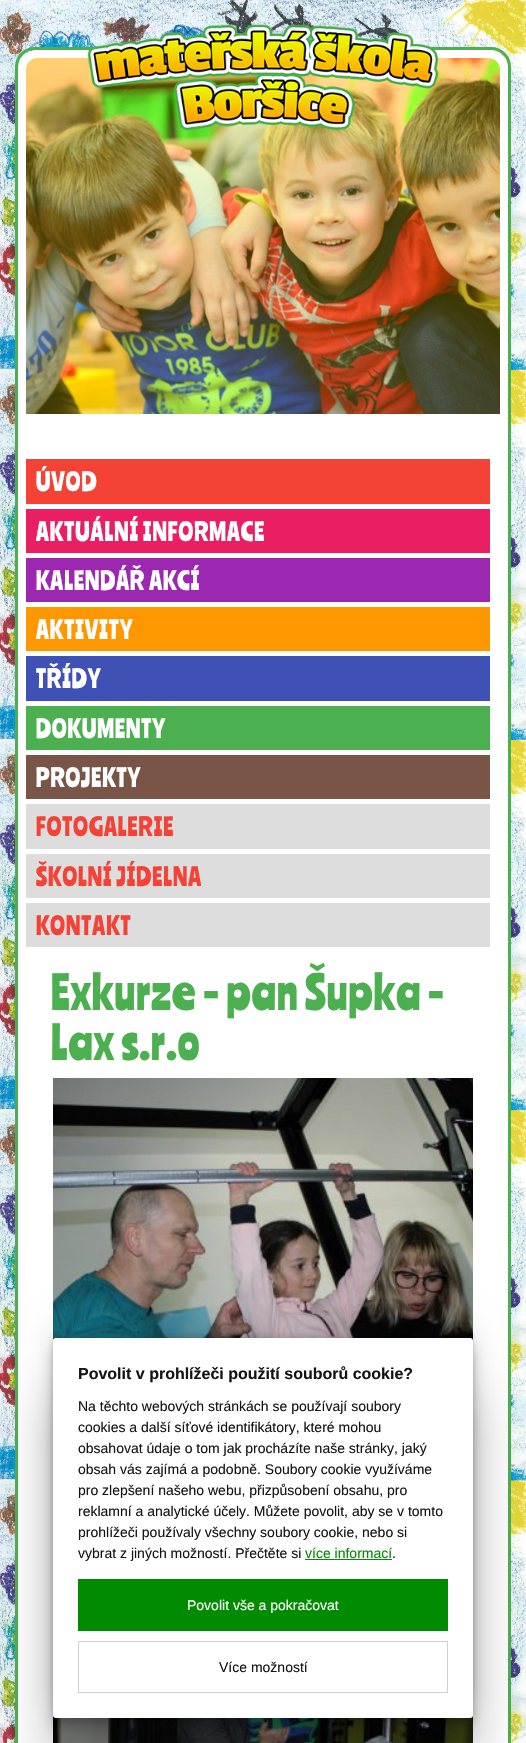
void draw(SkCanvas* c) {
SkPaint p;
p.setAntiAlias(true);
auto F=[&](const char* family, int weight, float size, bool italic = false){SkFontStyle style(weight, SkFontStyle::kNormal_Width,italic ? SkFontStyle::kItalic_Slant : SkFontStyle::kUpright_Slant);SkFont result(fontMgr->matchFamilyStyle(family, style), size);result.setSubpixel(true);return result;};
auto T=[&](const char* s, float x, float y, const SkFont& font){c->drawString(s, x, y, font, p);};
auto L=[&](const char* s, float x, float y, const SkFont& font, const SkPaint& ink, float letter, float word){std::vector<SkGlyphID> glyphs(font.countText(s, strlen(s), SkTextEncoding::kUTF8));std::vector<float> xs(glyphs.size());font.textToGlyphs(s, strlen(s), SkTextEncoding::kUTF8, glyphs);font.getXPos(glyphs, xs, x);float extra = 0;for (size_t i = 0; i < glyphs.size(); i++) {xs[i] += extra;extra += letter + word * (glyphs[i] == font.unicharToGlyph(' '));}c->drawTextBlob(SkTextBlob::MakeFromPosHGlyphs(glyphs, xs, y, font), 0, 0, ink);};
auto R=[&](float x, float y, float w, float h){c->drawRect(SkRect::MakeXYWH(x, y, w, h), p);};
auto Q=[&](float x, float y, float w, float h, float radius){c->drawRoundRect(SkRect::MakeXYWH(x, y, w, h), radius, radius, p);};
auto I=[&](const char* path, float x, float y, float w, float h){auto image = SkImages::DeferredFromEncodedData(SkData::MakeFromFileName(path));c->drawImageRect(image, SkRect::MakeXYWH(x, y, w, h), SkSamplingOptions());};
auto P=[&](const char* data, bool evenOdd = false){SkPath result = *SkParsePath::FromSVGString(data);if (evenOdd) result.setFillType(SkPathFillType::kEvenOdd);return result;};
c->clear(0xffffffff);
I("1.png",0,0,526,1743);
p.setStroke(true);
p.setStrokeWidth(3);
p.setColor(0xff4caf50);
c->drawRoundRect(SkRect::MakeXYWH(16.5,48.5,493,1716),18.5,18.5,p);
p.setStrokeWidth(8);
p.setColor(0xffffffff);
c->drawRoundRect(SkRect::MakeXYWH(22,54,482,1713),16,16,p);
I("3.png",26,58,474,356);
p.setStroke(false);
p.setColor(0x33ffff00);
c->drawPath(P("M38 58h450c6.5 0 12 5.5 12 12v344h-474v-344c0-6.5 5.5-12 12-12z"),p);
I("2.png",87,24,352,107);
p.setColor(0xffffffff);
R(26,414,474,1329);
p.setColor(0xfff44336);
R(26,459,464,45);
auto f1 = F("Ranchers",400,24);
p.setColor(0xffffffff);
L("ÚVOD",36,491,f1,p,1,0);
p.setColor(0xffe91e63);
R(26,509,464,44);
p.setColor(0xffffffff);
L("AKTUÁLNÍ INFORMACE",36,541,f1,p,1,0);
p.setColor(0xff9c27b0);
R(26,558,464,44);
p.setColor(0xffffffff);
L("KALENDÁŘ AKCÍ",36,590,f1,p,1,0);
p.setColor(0xffff9800);
R(26,607,464,44);
p.setColor(0xffffffff);
L("AKTIVITY",36,639,f1,p,1,0);
p.setColor(0xff3f51b5);
R(26,656,464,45);
p.setColor(0xffffffff);
L("TŘÍDY",36,688,f1,p,1,0);
p.setColor(0xff4caf50);
R(26,706,464,44);
p.setColor(0xffffffff);
L("DOKUMENTY",36,738,f1,p,1,0);
p.setColor(0xff795548);
R(26,755,464,44);
p.setColor(0xffffffff);
L("PROJEKTY",36,787,f1,p,1,0);
p.setColor(0xffdddddd);
R(26,804,464,45);
p.setColor(0xfff44336);
L("FOTOGALERIE",36,836,f1,p,1,0);
p.setColor(0xffdddddd);
R(26,854,464,44);
p.setColor(0xfff44336);
L("ŠKOLNÍ JÍDELNA",36,886,f1,p,1,0);
p.setColor(0xffdddddd);
R(26,903,464,44);
p.setColor(0xfff44336);
L("KONTAKT",36,935,f1,p,1,0);
auto f2 = F("Ranchers",400,45);
p.setColor(0xff4caf50);
L("Exkurze - pan Šupka -",51,1010,f2,p,1,0);
L("Lax s.r.o",51,1060,f2,p,1,0);
I("4.png",53,1078,420,263);
I("5.png",53,1715,420,28);
p.setColor(0x17000000);
p.setMaskFilter(SkMaskFilter::MakeBlur(kNormal_SkBlurStyle, 2.5));
c->drawRoundRect(SkRect::MakeXYWH(53,1335,420,380),3,3,p);
p.setMaskFilter(nullptr);
p.setColor(0x2b000000);
p.setMaskFilter(SkMaskFilter::MakeBlur(kNormal_SkBlurStyle, 6.5));
c->drawRoundRect(SkRect::MakeXYWH(53,1350,420,380),3,3,p);
p.setMaskFilter(nullptr);
p.setColor(0x1f000000);
p.setMaskFilter(SkMaskFilter::MakeBlur(kNormal_SkBlurStyle, 3));
c->drawRoundRect(SkRect::MakeXYWH(53,1342,420,380),3,3,p);
p.setMaskFilter(nullptr);
p.setMaskFilter(SkMaskFilter::MakeBlur(kNormal_SkBlurStyle, 15));
c->drawRoundRect(SkRect::MakeXYWH(53,1326,420,380),3,3,p);
p.setMaskFilter(nullptr);
p.setColor(0x40000000);
p.setMaskFilter(SkMaskFilter::MakeBlur(kNormal_SkBlurStyle, 27.5));
c->drawRoundRect(SkRect::MakeXYWH(53,1392,420,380),3,3,p);
p.setMaskFilter(nullptr);
p.setColor(0xffffffff);
Q(53,1338,420,380,3);
auto f3 = F("Liberation Sans",700,16);
p.setColor(0xff141414);
T("Povolit v prohlížeči použití souborů cookie?",78,1379,f3);
auto f4 = F("Liberation Sans",400,14);
T("Na těchto webových stránkách se používají soubory",78,1411,f4);
T("cookies a další síťové identifikátory, které mohou",78,1432,f4);
T("obsahovat údaje o tom jak procházíte naše stránky, jaký",78,1453,f4);
T("obsah vás zajímá a podobně. Soubory cookie využíváme",78,1474,f4);
T("pro zlepšení našeho webu, přizpůsobení obsahu, pro",78,1495,f4);
T("reklamní a analytické účely. Můžete povolit, aby se v tomto",78,1516,f4);
T("prohlížeči používaly všechny soubory cookie, nebo si",78,1537,f4);
T("vybrat z jiných možností. Přečtěte si",78,1558,f4);
p.setColor(0xff008b00);
T("více informací",305,1558,f4);
R(305,1559,87,1);
p.setColor(0xff141414);
T(".",392,1558,f4);
p.setColor(0xff008b00);
R(78,1579,370,52);
p.setColor(0xffffffff);
T("Povolit vše a pokračovat",187,1610,f4);
p.setStroke(true);
p.setStrokeWidth(1);
p.setColor(0xffd0d0d0);
c->drawRect(SkRect::MakeXYWH(78.5,1641.5,369,51),p);
p.setStroke(false);
p.setColor(0xff141414);
T("Více možností",219,1672,f4);
}
